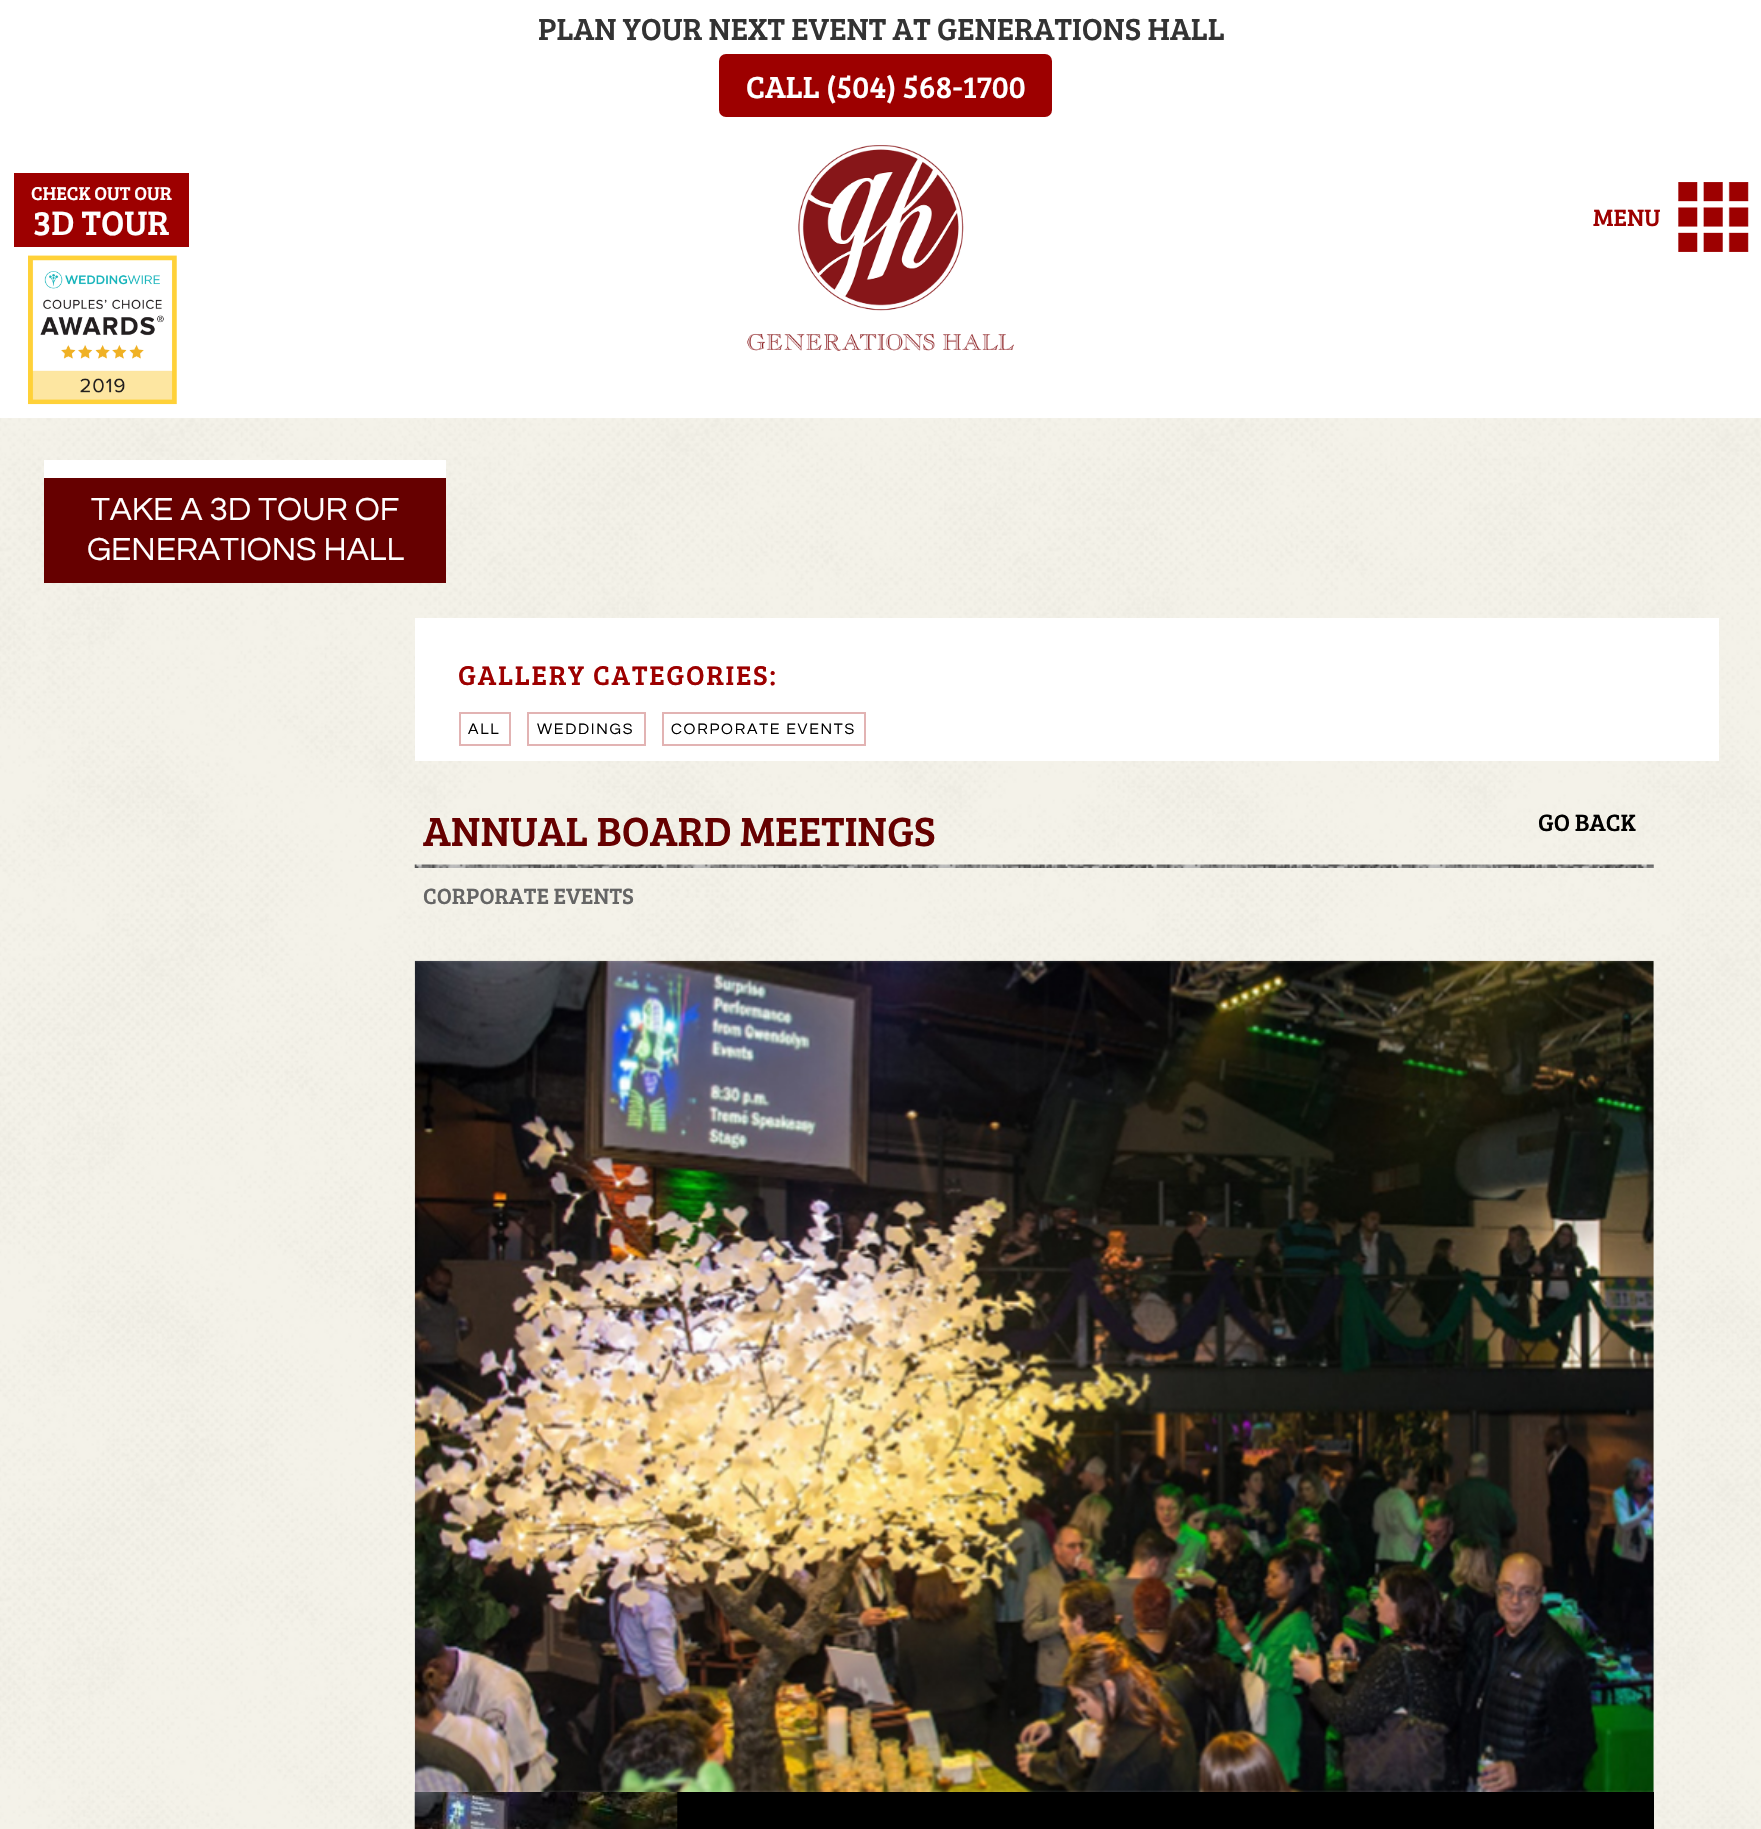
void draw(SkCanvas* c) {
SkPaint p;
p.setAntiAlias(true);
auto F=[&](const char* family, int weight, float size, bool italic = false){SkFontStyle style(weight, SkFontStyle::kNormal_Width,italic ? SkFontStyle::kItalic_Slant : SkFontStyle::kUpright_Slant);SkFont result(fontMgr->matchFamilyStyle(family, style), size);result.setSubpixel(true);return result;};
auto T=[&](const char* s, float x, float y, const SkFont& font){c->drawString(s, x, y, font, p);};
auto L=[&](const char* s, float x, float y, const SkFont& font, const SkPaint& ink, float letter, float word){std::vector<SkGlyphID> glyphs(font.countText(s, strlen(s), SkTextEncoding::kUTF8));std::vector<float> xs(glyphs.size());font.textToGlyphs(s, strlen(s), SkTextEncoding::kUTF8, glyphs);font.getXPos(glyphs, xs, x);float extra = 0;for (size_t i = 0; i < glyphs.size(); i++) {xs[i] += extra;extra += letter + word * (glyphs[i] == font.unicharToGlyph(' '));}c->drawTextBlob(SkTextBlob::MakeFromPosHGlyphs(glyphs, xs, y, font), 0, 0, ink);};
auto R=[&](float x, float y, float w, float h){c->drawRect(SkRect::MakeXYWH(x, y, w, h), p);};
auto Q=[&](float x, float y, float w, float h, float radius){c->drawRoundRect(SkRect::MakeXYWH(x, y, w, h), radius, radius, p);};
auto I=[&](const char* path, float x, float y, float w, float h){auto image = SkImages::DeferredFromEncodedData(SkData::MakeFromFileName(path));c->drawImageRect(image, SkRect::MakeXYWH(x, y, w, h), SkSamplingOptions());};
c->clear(0xffffffff);
I("1.png",0,418,1761,1411);
auto f1 = F("Bree Serif",400,31.5);
p.setColor(0xff333333);
T("PLAN YOUR NEXT EVENT AT GENERATIONS HALL",538,40,f1);
p.setColor(0xff9d0000);
Q(719,54,333,63,7);
p.setColor(0xffffffff);
T("CALL (504) 568-1700",746,98,f1);
p.setColor(0xff9d0000);
R(14,173,175,74);
auto f2 = F("Bree Serif",400,19.25);
p.setColor(0xffffffff);
T("CHECK OUT OUR",31,200,f2);
auto f3 = F("Bree Serif",400,35);
T("3D TOUR",33,235,f3);
I("2.png",28,255,149,150);
I("3.png",747,145,267,206);
auto f4 = F("Bree Serif",400,24.5);
p.setColor(0xff9d0000);
T("MENU",1593,226,f4);
I("4.png",1678,182,71,70);
p.setColor(0xffffffff);
R(44,460,402,18);
p.setColor(0xff660000);
R(44,478,402,105);
auto f5 = F("Questrial",400,33.25);
p.setColor(0xffffffff);
T("TAKE A 3D TOUR OF",91,520,f5);
T("GENERATIONS HALL",87,560,f5);
R(415,618,1304,143);
auto f6 = F("Bree Serif",400,28);
p.setColor(0xff9d0000);
L("GALLERY CATEGORIES:",458,685,f6,p,1.75,0);
p.setStroke(true);
p.setStrokeWidth(2);
p.setColor(0xffe2b3b3);
c->drawRect(SkRect::MakeXYWH(460,713,50,32),p);
auto f7 = F("Questrial",400,15.75);
p.setStroke(false);
p.setColor(0xff000000);
L("ALL",468,734,f7,p,1.75,0);
p.setStroke(true);
p.setColor(0xffe2b3b3);
c->drawRect(SkRect::MakeXYWH(528,713,117,32),p);
p.setStroke(false);
p.setColor(0xff000000);
L("WEDDINGS",537,734,f7,p,1.75,0);
p.setStroke(true);
p.setColor(0xffe2b3b3);
c->drawRect(SkRect::MakeXYWH(663,713,202,32),p);
p.setStroke(false);
p.setColor(0xff000000);
L("CORPORATE EVENTS",671,734,f7,p,1.75,0);
I("5.png",414,864,1240,4);
auto f8 = F("Bree Serif",400,42);
p.setColor(0xff660000);
T("ANNUAL BOARD MEETINGS",423,846,f8);
p.setColor(0xff000000);
T("GO BACK",1538,831,f4);
auto f9 = F("Bree Serif",400,22.75);
p.setColor(0xff656565);
T("CORPORATE EVENTS",423,904,f9);
I("6.png",414,960,1240,832);
p.setColor(0xff000000);
R(677,1792,977,37);
I("7.png",414,1792,264,37);
}
